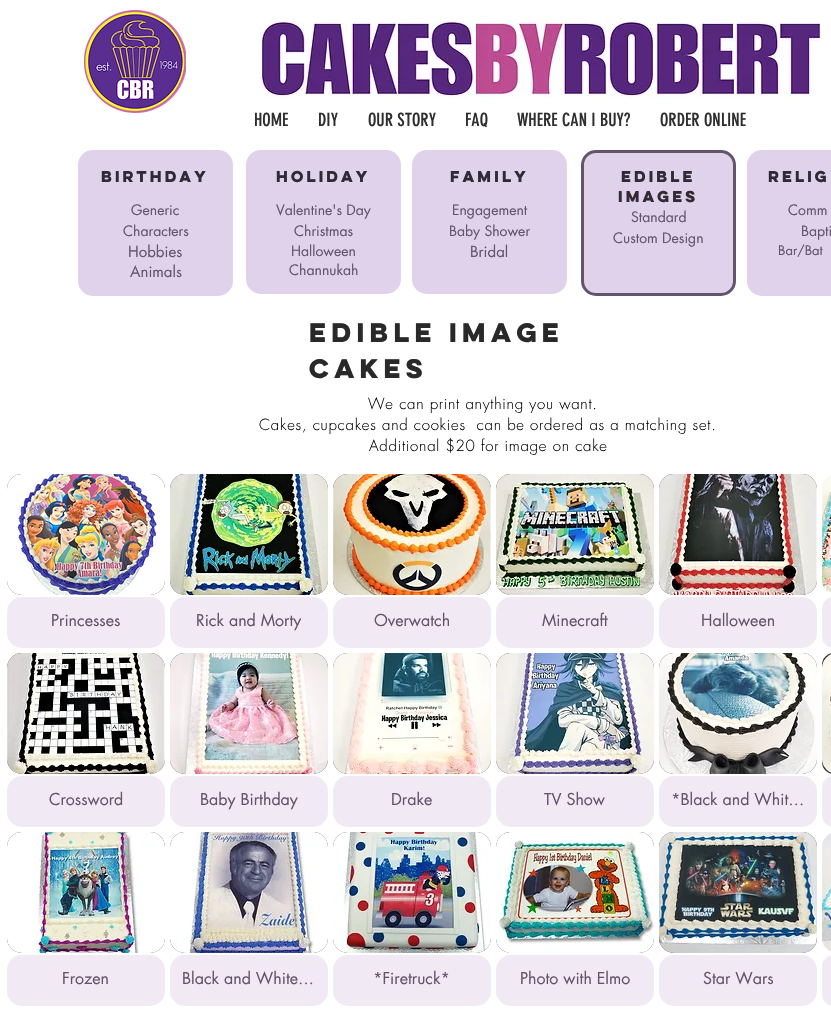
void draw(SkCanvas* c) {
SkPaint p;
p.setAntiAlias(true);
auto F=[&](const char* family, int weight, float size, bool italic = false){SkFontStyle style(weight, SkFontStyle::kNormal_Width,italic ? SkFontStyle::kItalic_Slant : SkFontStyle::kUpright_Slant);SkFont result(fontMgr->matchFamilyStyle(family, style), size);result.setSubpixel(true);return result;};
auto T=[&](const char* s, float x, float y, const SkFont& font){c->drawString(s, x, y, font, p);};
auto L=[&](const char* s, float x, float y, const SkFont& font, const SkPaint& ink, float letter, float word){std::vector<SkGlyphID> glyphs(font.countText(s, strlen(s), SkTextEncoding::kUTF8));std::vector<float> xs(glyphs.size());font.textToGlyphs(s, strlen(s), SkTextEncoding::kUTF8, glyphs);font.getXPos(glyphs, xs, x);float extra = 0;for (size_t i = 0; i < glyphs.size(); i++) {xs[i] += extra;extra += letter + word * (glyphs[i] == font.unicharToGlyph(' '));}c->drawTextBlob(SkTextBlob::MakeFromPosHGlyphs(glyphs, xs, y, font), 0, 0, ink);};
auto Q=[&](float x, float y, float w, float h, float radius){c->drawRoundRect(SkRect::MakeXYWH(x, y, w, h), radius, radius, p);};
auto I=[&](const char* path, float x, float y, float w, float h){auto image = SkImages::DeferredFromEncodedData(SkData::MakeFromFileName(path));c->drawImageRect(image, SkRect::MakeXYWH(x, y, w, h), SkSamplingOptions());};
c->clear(0xffffffff);
I("1.png",84,10,102,103);
I("2.png",260,18,560,81);
auto f1 = F("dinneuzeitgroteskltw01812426",400,18);
p.setColor(0xff2f2e2e);
T("HOME",254,126,f1);
T("DIY",318,126,f1);
T("OUR STORY",368,126,f1);
T("FAQ",465,126,f1);
T("WHERE CAN I BUY?",517,126,f1);
T("ORDER ONLINE",660,126,f1);
p.setColor(0xffe0d2ea);
Q(78,150,155,146,15);
auto f2 = F("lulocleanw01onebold",700,14);
p.setColor(0xff312a35);
T("birthday",101,182,f2);
auto f3 = F("futura",400,14);
p.setColor(0xff62556a);
T("Generic",131,215,f3);
T("Characters",123,236,f3);
auto f4 = F("futura",400,15);
T("Hobbies",128,257,f4);
T("Animals",130,277,f4);
p.setColor(0xffe0d2ea);
Q(246,150,155,144,15);
p.setColor(0xff312a35);
T("holiday",276,182,f2);
p.setColor(0xff62556a);
T("Valentine's Day",276,215,f3);
T("Christmas",294,236,f3);
T("Halloween",291,256,f3);
T("Channukah",289,275,f3);
p.setColor(0xffe0d2ea);
Q(412,150,155,144,15);
p.setColor(0xff312a35);
T("family",450,182,f2);
p.setColor(0xff62556a);
T("Engagement",452,215,f3);
T("Baby Shower",449,236,f3);
T("Bridal",470,257,f4);
p.setColor(0xffe0d2ea);
c->drawRoundRect(SkRect::MakeXYWH(582.5,151.5,152,143),13.5,13.5,p);
p.setStroke(true);
p.setStrokeWidth(3);
p.setColor(0xff62556a);
c->drawRoundRect(SkRect::MakeXYWH(582.5,151.5,152,143),13.5,13.5,p);
p.setStroke(false);
p.setColor(0xff312a35);
T("edible",621,182,f2);
T("images",618,202,f2);
p.setColor(0xff62556a);
T("Standard",631,222,f3);
T("Custom Design",613,243,f3);
p.setColor(0xffe0d2ea);
Q(747,150,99,146,15);
p.setColor(0xff312a35);
T("relig",768,182,f2);
p.setColor(0xff62556a);
T("Comm",788,215,f3);
T("Bapti",801,236,f3);
auto f5 = F("futura",400,13);
T("Bar/Bat",778,255,f5);
auto f6 = F("lulocleanw01onebold",700,24);
p.setColor(0xff292929);
T("Edible Image",309,342,f6);
T("cakes",309,378,f6);
auto f7 = F("futura",300,15);
p.setColor(0xff000000);
L("We can print anything you want.",368,409,f7,p,.75,0);
L("Cakes, cupcakes and cookies  can be ordered as a matching set.",259,430,f7,p,.75,0);
L("Additional $20 for image on cake",369,451,f7,p,.75,0);
p.setColor(0xff2f2e2e);
Q(7,474,158,121,15);
I("3.png",7,474,158,121);
p.setColor(0xfff1eaf5);
Q(7,597,158,51,15);
auto f8 = F("futura",400,16);
p.setColor(0xff62556a);
T("Princesses",51,626,f8);
p.setColor(0xff2f2e2e);
Q(170,474,158,121,15);
I("4.png",170,474,158,121);
p.setColor(0xfff1eaf5);
Q(170,597,158,51,15);
p.setColor(0xff62556a);
T("Rick and Morty",196,626,f8);
p.setColor(0xff2f2e2e);
Q(333,474,158,121,15);
I("5.png",333,474,158,121);
p.setColor(0xfff1eaf5);
Q(333,597,158,51,15);
p.setColor(0xff62556a);
T("Overwatch",374,626,f8);
p.setColor(0xff2f2e2e);
Q(496,474,158,121,15);
I("6.png",496,474,158,121);
p.setColor(0xfff1eaf5);
Q(496,597,158,51,15);
p.setColor(0xff62556a);
T("Minecraft",542,626,f8);
p.setColor(0xff2f2e2e);
Q(659,474,158,121,15);
I("7.png",659,474,158,121);
p.setColor(0xfff1eaf5);
Q(659,597,158,51,15);
p.setColor(0xff62556a);
T("Halloween",701,626,f8);
I("8.png",822,475,9,119);
p.setColor(0xfff1eaf5);
Q(822,597,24,51,15);
p.setColor(0xff2f2e2e);
Q(7,653,158,121,15);
I("9.png",7,653,158,121);
p.setColor(0xfff1eaf5);
Q(7,776,158,51,15);
p.setColor(0xff62556a);
T("Crossword",49,805,f8);
p.setColor(0xff2f2e2e);
Q(170,653,158,121,15);
I("10.png",170,653,158,121);
p.setColor(0xfff1eaf5);
Q(170,776,158,51,15);
p.setColor(0xff62556a);
T("Baby Birthday",200,805,f8);
p.setColor(0xff2f2e2e);
Q(333,653,158,121,15);
I("11.png",333,653,158,121);
p.setColor(0xfff1eaf5);
Q(333,776,158,51,15);
p.setColor(0xff62556a);
T("Drake",391,805,f8);
p.setColor(0xff2f2e2e);
Q(496,653,158,121,15);
I("12.png",496,653,158,121);
p.setColor(0xfff1eaf5);
Q(496,776,158,51,15);
p.setColor(0xff62556a);
T("TV Show",544,805,f8);
p.setColor(0xff2f2e2e);
Q(659,653,158,121,15);
I("13.png",659,653,158,121);
p.setColor(0xfff1eaf5);
Q(659,776,158,51,15);
p.setColor(0xff62556a);
T("*Black and Whit…",671,805,f8);
p.setColor(0xff2f2e2e);
Q(822,653,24,121,15);
I("14.png",822,654,9,119);
p.setColor(0xfff1eaf5);
Q(822,776,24,51,15);
p.setColor(0xff2f2e2e);
Q(7,832,158,121,15);
I("15.png",7,832,158,121);
p.setColor(0xfff1eaf5);
Q(7,955,158,51,15);
p.setColor(0xff62556a);
T("Frozen",62,984,f8);
p.setColor(0xff2f2e2e);
Q(170,832,158,121,15);
I("16.png",170,832,158,121);
p.setColor(0xfff1eaf5);
Q(170,955,158,51,15);
p.setColor(0xff62556a);
T("Black and White…",182,984,f8);
p.setColor(0xff2f2e2e);
Q(333,832,158,121,15);
I("17.png",333,832,158,121);
p.setColor(0xfff1eaf5);
Q(333,955,158,51,15);
p.setColor(0xff62556a);
T("*Firetruck*",373,984,f8);
p.setColor(0xff2f2e2e);
Q(496,832,158,121,15);
I("18.png",496,832,158,121);
p.setColor(0xfff1eaf5);
Q(496,955,158,51,15);
p.setColor(0xff62556a);
T("Photo with Elmo",520,984,f8);
p.setColor(0xff2f2e2e);
Q(659,832,158,121,15);
I("19.png",659,832,158,121);
p.setColor(0xfff1eaf5);
Q(659,955,158,51,15);
p.setColor(0xff62556a);
T("Star Wars",703,984,f8);
I("20.png",822,833,9,119);
p.setColor(0xfff1eaf5);
Q(822,955,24,51,15);
}
